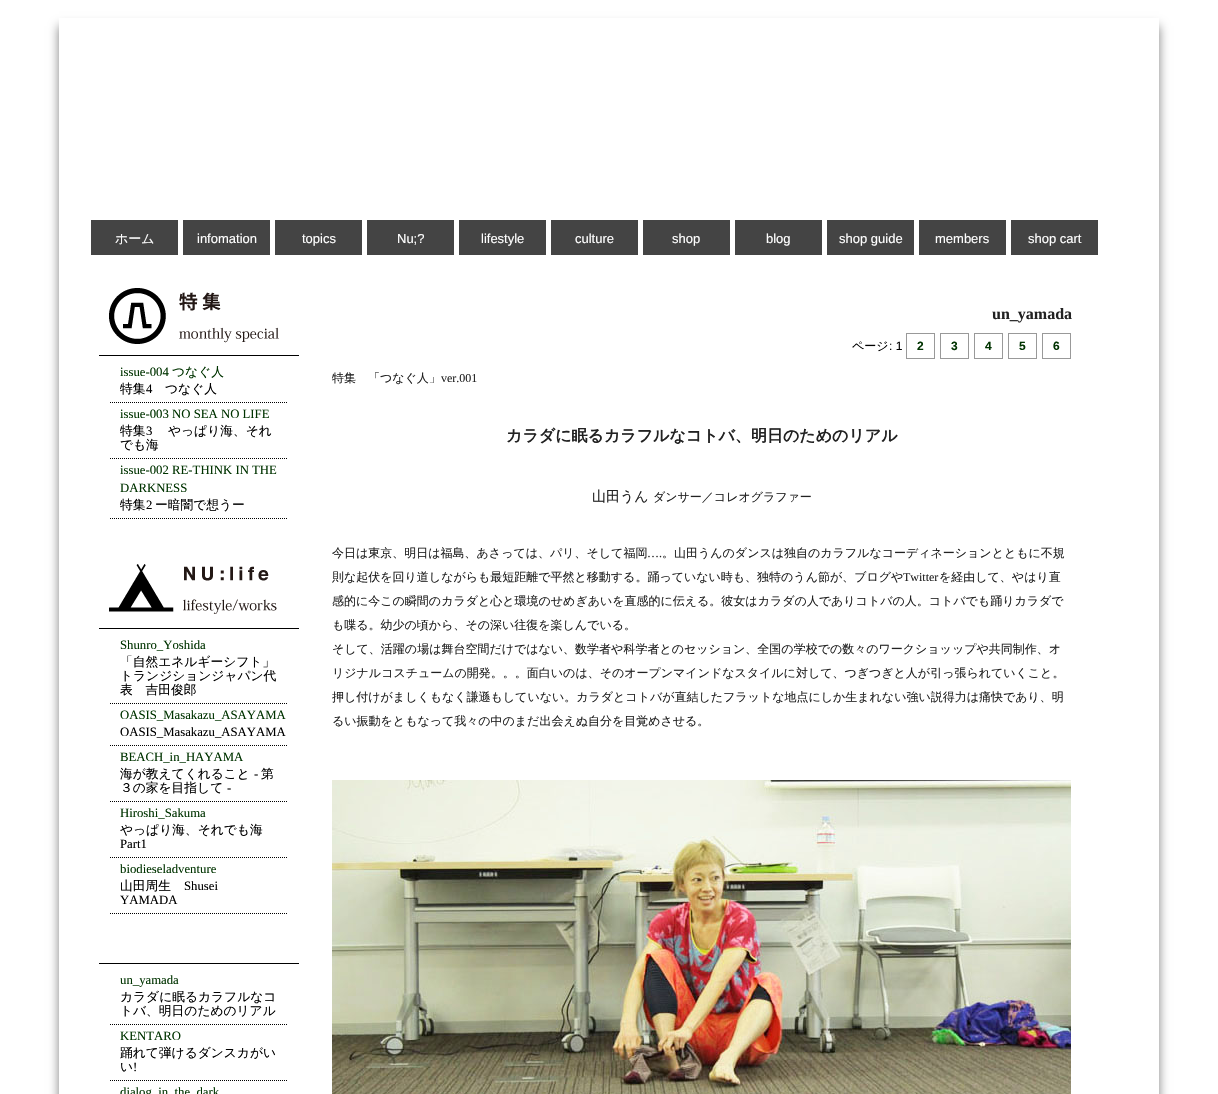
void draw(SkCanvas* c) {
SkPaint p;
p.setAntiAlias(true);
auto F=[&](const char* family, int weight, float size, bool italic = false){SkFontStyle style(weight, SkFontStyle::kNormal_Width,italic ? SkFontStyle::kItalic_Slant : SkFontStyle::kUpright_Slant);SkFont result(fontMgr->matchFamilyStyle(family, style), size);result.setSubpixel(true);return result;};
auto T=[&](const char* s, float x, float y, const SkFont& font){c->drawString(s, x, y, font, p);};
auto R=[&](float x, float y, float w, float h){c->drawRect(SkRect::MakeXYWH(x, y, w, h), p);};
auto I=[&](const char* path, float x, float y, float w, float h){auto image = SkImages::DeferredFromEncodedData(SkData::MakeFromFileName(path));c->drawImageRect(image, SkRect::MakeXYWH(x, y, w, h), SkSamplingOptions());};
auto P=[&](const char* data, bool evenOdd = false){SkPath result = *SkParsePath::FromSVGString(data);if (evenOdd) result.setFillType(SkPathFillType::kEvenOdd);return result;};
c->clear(0xffffffff);
c->save();
c->clipPath(P("M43 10h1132v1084h-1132zm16 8h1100v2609h-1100z",true),true);
p.setColor(0x80000000);
p.setMaskFilter(SkMaskFilter::MakeBlur(kNormal_SkBlurStyle, 5));
c->drawRect(SkRect::MakeXYWH(59,26,1100,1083),p);
p.setMaskFilter(nullptr);
c->restore();
p.setColor(0xff444444);
R(91,220,87,35);
auto f1 = F("WenQuanYi Zen Hei",500,13);
p.setColor(0xffffffff);
T("ホーム",115,243,f1);
p.setColor(0xff444444);
R(183,220,87,35);
auto f2 = F("Liberation Sans",400,13);
p.setColor(0xffffffff);
T("infomation",197,243,f2);
p.setColor(0xff444444);
R(275,220,87,35);
p.setColor(0xffffffff);
T("topics",302,243,f2);
p.setColor(0xff444444);
R(367,220,87,35);
p.setColor(0xffffffff);
T("Nu;?",397,243,f2);
p.setColor(0xff444444);
R(459,220,87,35);
p.setColor(0xffffffff);
T("lifestyle",481,243,f2);
p.setColor(0xff444444);
R(551,220,87,35);
p.setColor(0xffffffff);
T("culture",575,243,f2);
p.setColor(0xff444444);
R(643,220,87,35);
p.setColor(0xffffffff);
T("shop",672,243,f2);
p.setColor(0xff444444);
R(735,220,87,35);
p.setColor(0xffffffff);
T("blog",766,243,f2);
p.setColor(0xff444444);
R(827,220,87,35);
p.setColor(0xffffffff);
T("shop guide",839,243,f2);
p.setColor(0xff444444);
R(919,220,87,35);
p.setColor(0xffffffff);
T("members",935,243,f2);
p.setColor(0xff444444);
R(1011,220,87,35);
p.setColor(0xffffffff);
T("shop cart",1028,243,f2);
p.setColor(0xff000000);
R(99,355,200,1);
I("1.png",109,288,170,56);
p.setStroke(true);
p.setStrokeWidth(1);
p.setPathEffect(SkDashPathEffect::Make({{1,1}}, 0));
c->drawPath(P("M110 402.5h178"),p);
p.setPathEffect(nullptr);
auto f3 = F("Liberation Serif",400,12.75);
p.setStroke(false);
p.setColor(0xff003300);
T("issue-004",120,376,f3);
auto f4 = F("WenQuanYi Zen Hei",500,12.75);
T("つなぐ人",172,376,f4);
p.setColor(0xff000000);
T("特集",120,393,f4);
T("4",146,393,f3);
T("つなぐ人",165,393,f4);
p.setStroke(true);
p.setPathEffect(SkDashPathEffect::Make({{1,1}}, 0));
c->drawPath(P("M110 458.5h178"),p);
p.setPathEffect(nullptr);
p.setStroke(false);
p.setColor(0xff003300);
T("issue-003 NO SEA NO LIFE",120,418,f3);
p.setColor(0xff000000);
T("特集",120,435,f4);
T("3",146,435,f3);
T("やっぱり海、それ",168,435,f4);
T("でも海",120,449,f4);
p.setStroke(true);
p.setPathEffect(SkDashPathEffect::Make({{1,1}}, 0));
c->drawPath(P("M110 518.5h178"),p);
p.setPathEffect(nullptr);
p.setStroke(false);
p.setColor(0xff003300);
T("issue-002 RE-THINK IN THE",120,474,f3);
T("DARKNESS",120,492,f3);
p.setColor(0xff000000);
T("特集",120,509,f4);
T("2",146,509,f3);
T("ー暗闇で想うー",155,509,f4);
R(99,628,200,1);
I("2.png",109,564,168,50);
p.setStroke(true);
p.setPathEffect(SkDashPathEffect::Make({{1,1}}, 0));
c->drawPath(P("M110 703.5h178"),p);
p.setPathEffect(nullptr);
p.setStroke(false);
p.setColor(0xff003300);
T("Shunro_Yoshida",120,649,f3);
p.setColor(0xff000000);
T("「自然エネルギーシフト」",120,666,f4);
T("トランジションジャパン代",120,680,f4);
T("表　吉田俊郎",120,694,f4);
p.setStroke(true);
p.setPathEffect(SkDashPathEffect::Make({{1,1}}, 0));
c->drawPath(P("M110 745.5h178"),p);
p.setPathEffect(nullptr);
p.setStroke(false);
p.setColor(0xff003300);
T("OASIS_Masakazu_ASAYAMA",120,719,f3);
p.setColor(0xff000000);
T("OASIS_Masakazu_ASAYAMA",120,736,f3);
p.setStroke(true);
p.setPathEffect(SkDashPathEffect::Make({{1,1}}, 0));
c->drawPath(P("M110 801.5h178"),p);
p.setPathEffect(nullptr);
p.setStroke(false);
p.setColor(0xff003300);
T("BEACH_in_HAYAMA",120,761,f3);
p.setColor(0xff000000);
T("海が教えてくれること",120,778,f4);
T("-",254,778,f3);
T("第",261,778,f4);
T("３の家を目指して",120,792,f4);
T("-",227,792,f3);
p.setStroke(true);
p.setPathEffect(SkDashPathEffect::Make({{1,1}}, 0));
c->drawPath(P("M110 857.5h178"),p);
p.setPathEffect(nullptr);
p.setStroke(false);
p.setColor(0xff003300);
T("Hiroshi_Sakuma",120,817,f3);
p.setColor(0xff000000);
T("やっぱり海、それでも海",120,834,f4);
T("Part1",120,848,f3);
p.setStroke(true);
p.setPathEffect(SkDashPathEffect::Make({{1,1}}, 0));
c->drawPath(P("M110 913.5h178"),p);
p.setPathEffect(nullptr);
p.setStroke(false);
p.setColor(0xff003300);
T("biodieseladventure",120,873,f3);
p.setColor(0xff000000);
T("山田周生",120,890,f4);
T("Shusei",184,890,f3);
T("YAMADA",120,904,f3);
R(99,963,200,1);
p.setStroke(true);
p.setPathEffect(SkDashPathEffect::Make({{1,1}}, 0));
c->drawPath(P("M110 1024.5h178"),p);
p.setPathEffect(nullptr);
p.setStroke(false);
p.setColor(0xff003300);
T("un_yamada",120,984,f3);
p.setColor(0xff000000);
T("カラダに眠るカラフルなコ",120,1001,f4);
T("トバ、明日のためのリアル",120,1015,f4);
p.setStroke(true);
p.setPathEffect(SkDashPathEffect::Make({{1,1}}, 0));
c->drawPath(P("M110 1080.5h178"),p);
p.setPathEffect(nullptr);
p.setStroke(false);
p.setColor(0xff003300);
T("KENTARO",120,1040,f3);
p.setColor(0xff000000);
T("踊れて弾けるダンスカがい",120,1057,f4);
T("い",120,1071,f4);
T("!",133,1071,f3);
p.setColor(0xff003300);
T("dialog_in_the_dark",120,1096,f3);
auto f5 = F("Liberation Serif",700,16);
p.setColor(0xff222222);
T("un_yamada",992,319,f5);
auto f6 = F("WenQuanYi Zen Hei",500,12);
p.setColor(0xff000000);
T("ページ",852,350,f6);
auto f7 = F("Liberation Sans",400,12);
T(": 1",889,350,f7);
p.setStroke(true);
p.setColor(0xff999999);
c->drawRect(SkRect::MakeXYWH(906.5,333.5,28,25),p);
auto f8 = F("Liberation Sans",700,12);
p.setStroke(false);
p.setColor(0xff003300);
T("2",917,350,f8);
p.setStroke(true);
p.setColor(0xff999999);
c->drawRect(SkRect::MakeXYWH(940.5,333.5,28,25),p);
p.setStroke(false);
p.setColor(0xff003300);
T("3",951,350,f8);
p.setStroke(true);
p.setColor(0xff999999);
c->drawRect(SkRect::MakeXYWH(974.5,333.5,28,25),p);
p.setStroke(false);
p.setColor(0xff003300);
T("4",985,350,f8);
p.setStroke(true);
p.setColor(0xff999999);
c->drawRect(SkRect::MakeXYWH(1008.5,333.5,28,25),p);
p.setStroke(false);
p.setColor(0xff003300);
T("5",1019,350,f8);
p.setStroke(true);
p.setColor(0xff999999);
c->drawRect(SkRect::MakeXYWH(1042.5,333.5,28,25),p);
p.setStroke(false);
p.setColor(0xff003300);
T("6",1053,350,f8);
p.setColor(0xff222222);
T("特集　「つなぐ人」",332,382,f6);
auto f9 = F("Liberation Serif",400,12);
T("ver.001",441,382,f9);
auto f10 = F("WenQuanYi Zen Hei",700,16);
T("カラダに眠るカラフルなコトバ、明日のためのリアル",506,441,f10);
auto f11 = F("WenQuanYi Zen Hei",500,14);
T("山田うん",592,501,f11);
T("ダンサー／コレオグラファー",653,501,f6);
T("今日は東京、明日は福島、あさっては、パリ、そして福岡",332,557,f6);
T("….",647,557,f9);
T("。山田うんのダンスは独自のカラフルなコーディネーションとともに不規",662,557,f6);
T("則な起伏を回り道しながらも最短距離で平然と移動する。踊っていない時も、独特のうん節が、ブログや",332,581,f6);
T("Twitter",903,581,f9);
T("を経由して、やはり直",939,581,f6);
T("感的に今この瞬間のカラダと心と環境のせめぎあいを直感的に伝える。彼女はカラダの人でありコトバの人。コトバでも踊りカラダで",332,605,f6);
T("も喋る。幼少の頃から、その深い往復を楽しんでいる。",332,629,f6);
T("そして、活躍の場は舞台空間だけではない、数学者や科学者とのセッション、全国の学校での数々のワークショッップや共同制作、オ",332,653,f6);
T("リジナルコスチュームの開発。。。面白いのは、そのオープンマインドなスタイルに対して、つぎつぎと人が引っ張られていくこと。",332,677,f6);
T("押し付けがましくもなく謙遜もしていない。カラダとコトバが直結したフラットな地点にしか生まれない強い説得力は痛快であり、明",332,701,f6);
T("るい振動をともなって我々の中のまだ出会えぬ自分を目覚めさせる。",332,725,f6);
I("3.png",332,780,739,314);
}
